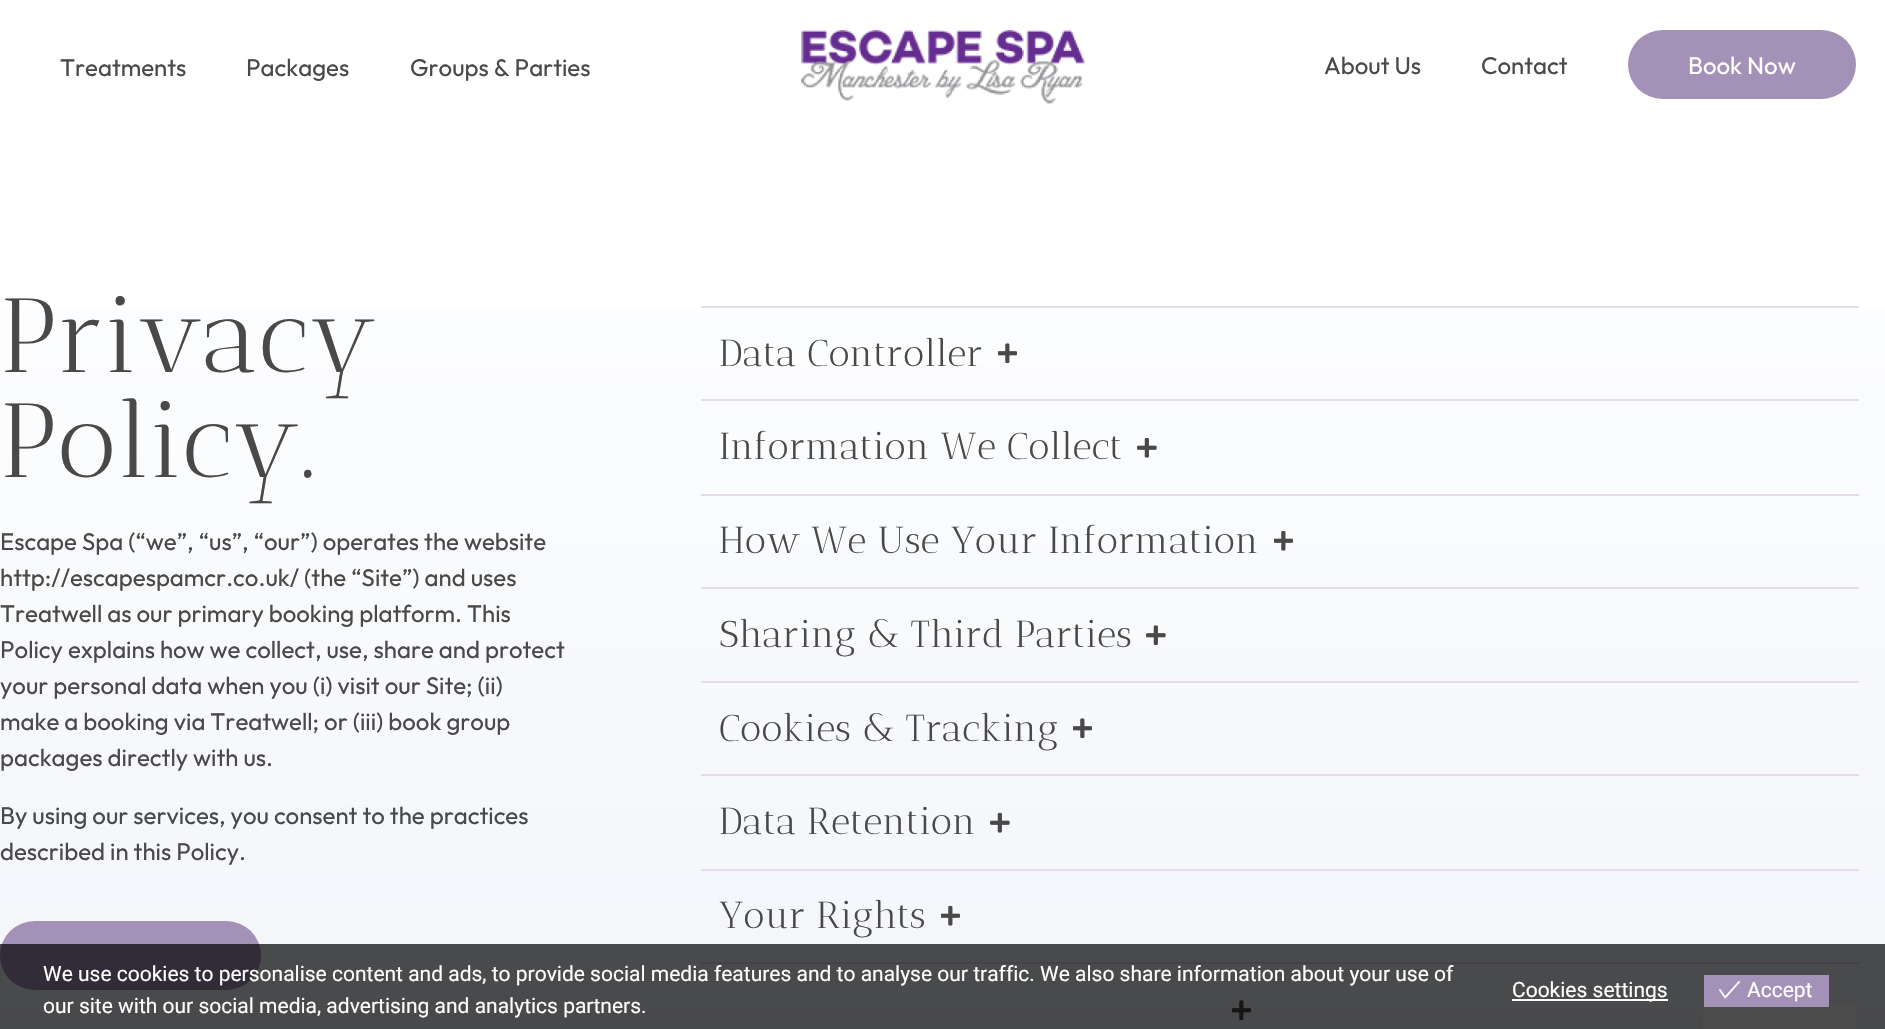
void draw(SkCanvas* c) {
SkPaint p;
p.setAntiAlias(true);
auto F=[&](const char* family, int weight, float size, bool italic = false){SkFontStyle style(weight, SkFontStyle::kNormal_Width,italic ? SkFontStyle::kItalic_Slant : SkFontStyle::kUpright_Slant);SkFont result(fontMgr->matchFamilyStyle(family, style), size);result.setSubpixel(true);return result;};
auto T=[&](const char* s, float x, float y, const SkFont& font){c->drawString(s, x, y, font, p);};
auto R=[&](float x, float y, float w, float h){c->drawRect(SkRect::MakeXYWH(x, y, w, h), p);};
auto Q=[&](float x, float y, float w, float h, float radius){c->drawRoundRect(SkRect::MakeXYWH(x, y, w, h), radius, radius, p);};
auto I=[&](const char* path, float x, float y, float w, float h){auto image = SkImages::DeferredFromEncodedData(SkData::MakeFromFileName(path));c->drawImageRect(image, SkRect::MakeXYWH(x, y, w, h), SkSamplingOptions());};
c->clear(0xffffffff);
auto f1 = F("Outfit",400,24);
p.setColor(0xff494949);
T("Treatments",60,76,f1);
T("Packages",246,76,f1);
T("Groups & Parties",410,76,f1);
I("1.png",801,30,284,74);
T("About Us",1324,74,f1);
T("Contact",1481,74,f1);
p.setColor(0xffa491b7);
Q(1628,30,228,69,34.5);
p.setColor(0xffffffff);
T("Book Now",1688,74,f1);
{
const SkColor colors[] = {0xffffffff,0xffeef2f8};
const float stops[] = {0,1};
const SkPoint ends[] = {{943,133}, {943,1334}};
p.setShader(SkGradientShader::MakeLinear(ends, colors, stops, 2, SkTileMode::kClamp));
p.setAlpha(255);
}
R(0,310,1885,719);
auto f2 = F("Antic Didone",400,105);
p.setShader(nullptr);
p.setColor(0xff494949);
T("Privacy",0,372,f2);
T("Policy.",0,477,f2);
T("Escape Spa (“we”, “us”, “our”) operates the website",0,550,f1);
T("http://escapespamcr.co.uk/ (the “Site”) and uses",0,586,f1);
T("Treatwell as our primary booking platform. This",0,622,f1);
T("Policy explains how we collect, use, share and protect",0,658,f1);
T("your personal data when you (i) visit our Site; (ii)",0,694,f1);
T("make a booking via Treatwell; or (iii) book group",0,730,f1);
T("packages directly with us.",0,766,f1);
T("By using our services, you consent to the practices",0,824,f1);
T("described in this Policy.",0,860,f1);
p.setColor(0xffa491b7);
Q(0,921,261,69,34.5);
p.setColor(0xffe4dcea);
R(701,306,1158,2);
auto f3 = F("Antic Didone",400,37.5);
p.setColor(0xff494949);
T("Data Controller",719,366,f3);
I("2.png",998,343,19,21);
p.setColor(0xffe4dcea);
R(701,399,1158,2);
p.setColor(0xff494949);
T("Information We Collect",719,459,f3);
I("3.png",1137,437,20,21);
p.setColor(0xffe4dcea);
R(701,494,1158,2);
p.setColor(0xff494949);
T("How We Use Your Information",719,553,f3);
I("4.png",1274,530,19,21);
p.setColor(0xffe4dcea);
R(701,587,1158,2);
p.setColor(0xff494949);
T("Sharing & Third Parties",719,647,f3);
I("5.png",1146,625,20,21);
p.setColor(0xffe4dcea);
R(701,681,1158,2);
p.setColor(0xff494949);
T("Cookies & Tracking",719,741,f3);
I("6.png",1073,718,19,21);
p.setColor(0xffe4dcea);
R(701,774,1158,2);
p.setColor(0xff494949);
T("Data Retention",719,834,f3);
I("7.png",990,812,20,21);
p.setColor(0xffe4dcea);
R(701,869,1158,2);
p.setColor(0xff494949);
T("Your Rights",719,928,f3);
I("8.png",941,905,19,21);
p.setColor(0xffe4dcea);
R(701,962,1158,2);
I("9.png",1232,1000,19,21);
p.setColor(0xffffffff);
R(1703,1005,153,24);
p.setColor(0xb3000000);
R(0,944,1885,85);
auto f4 = F("Roboto",400,21);
p.setColor(0xffffffff);
T("We use cookies to personalise content and ads, to provide social media features and to analyse our traffic. We also share information about your use of",43,981,f4);
T("our site with our social media, advertising and analytics partners.",43,1013,f4);
R(1512,999,156,2);
T("Cookies settings",1512,997,f4);
p.setColor(0xffa491b7);
R(1704,975,125,32);
I("10.png",1719,981,21,18);
p.setColor(0xffffffff);
T("Accept",1747,997,f4);
}
